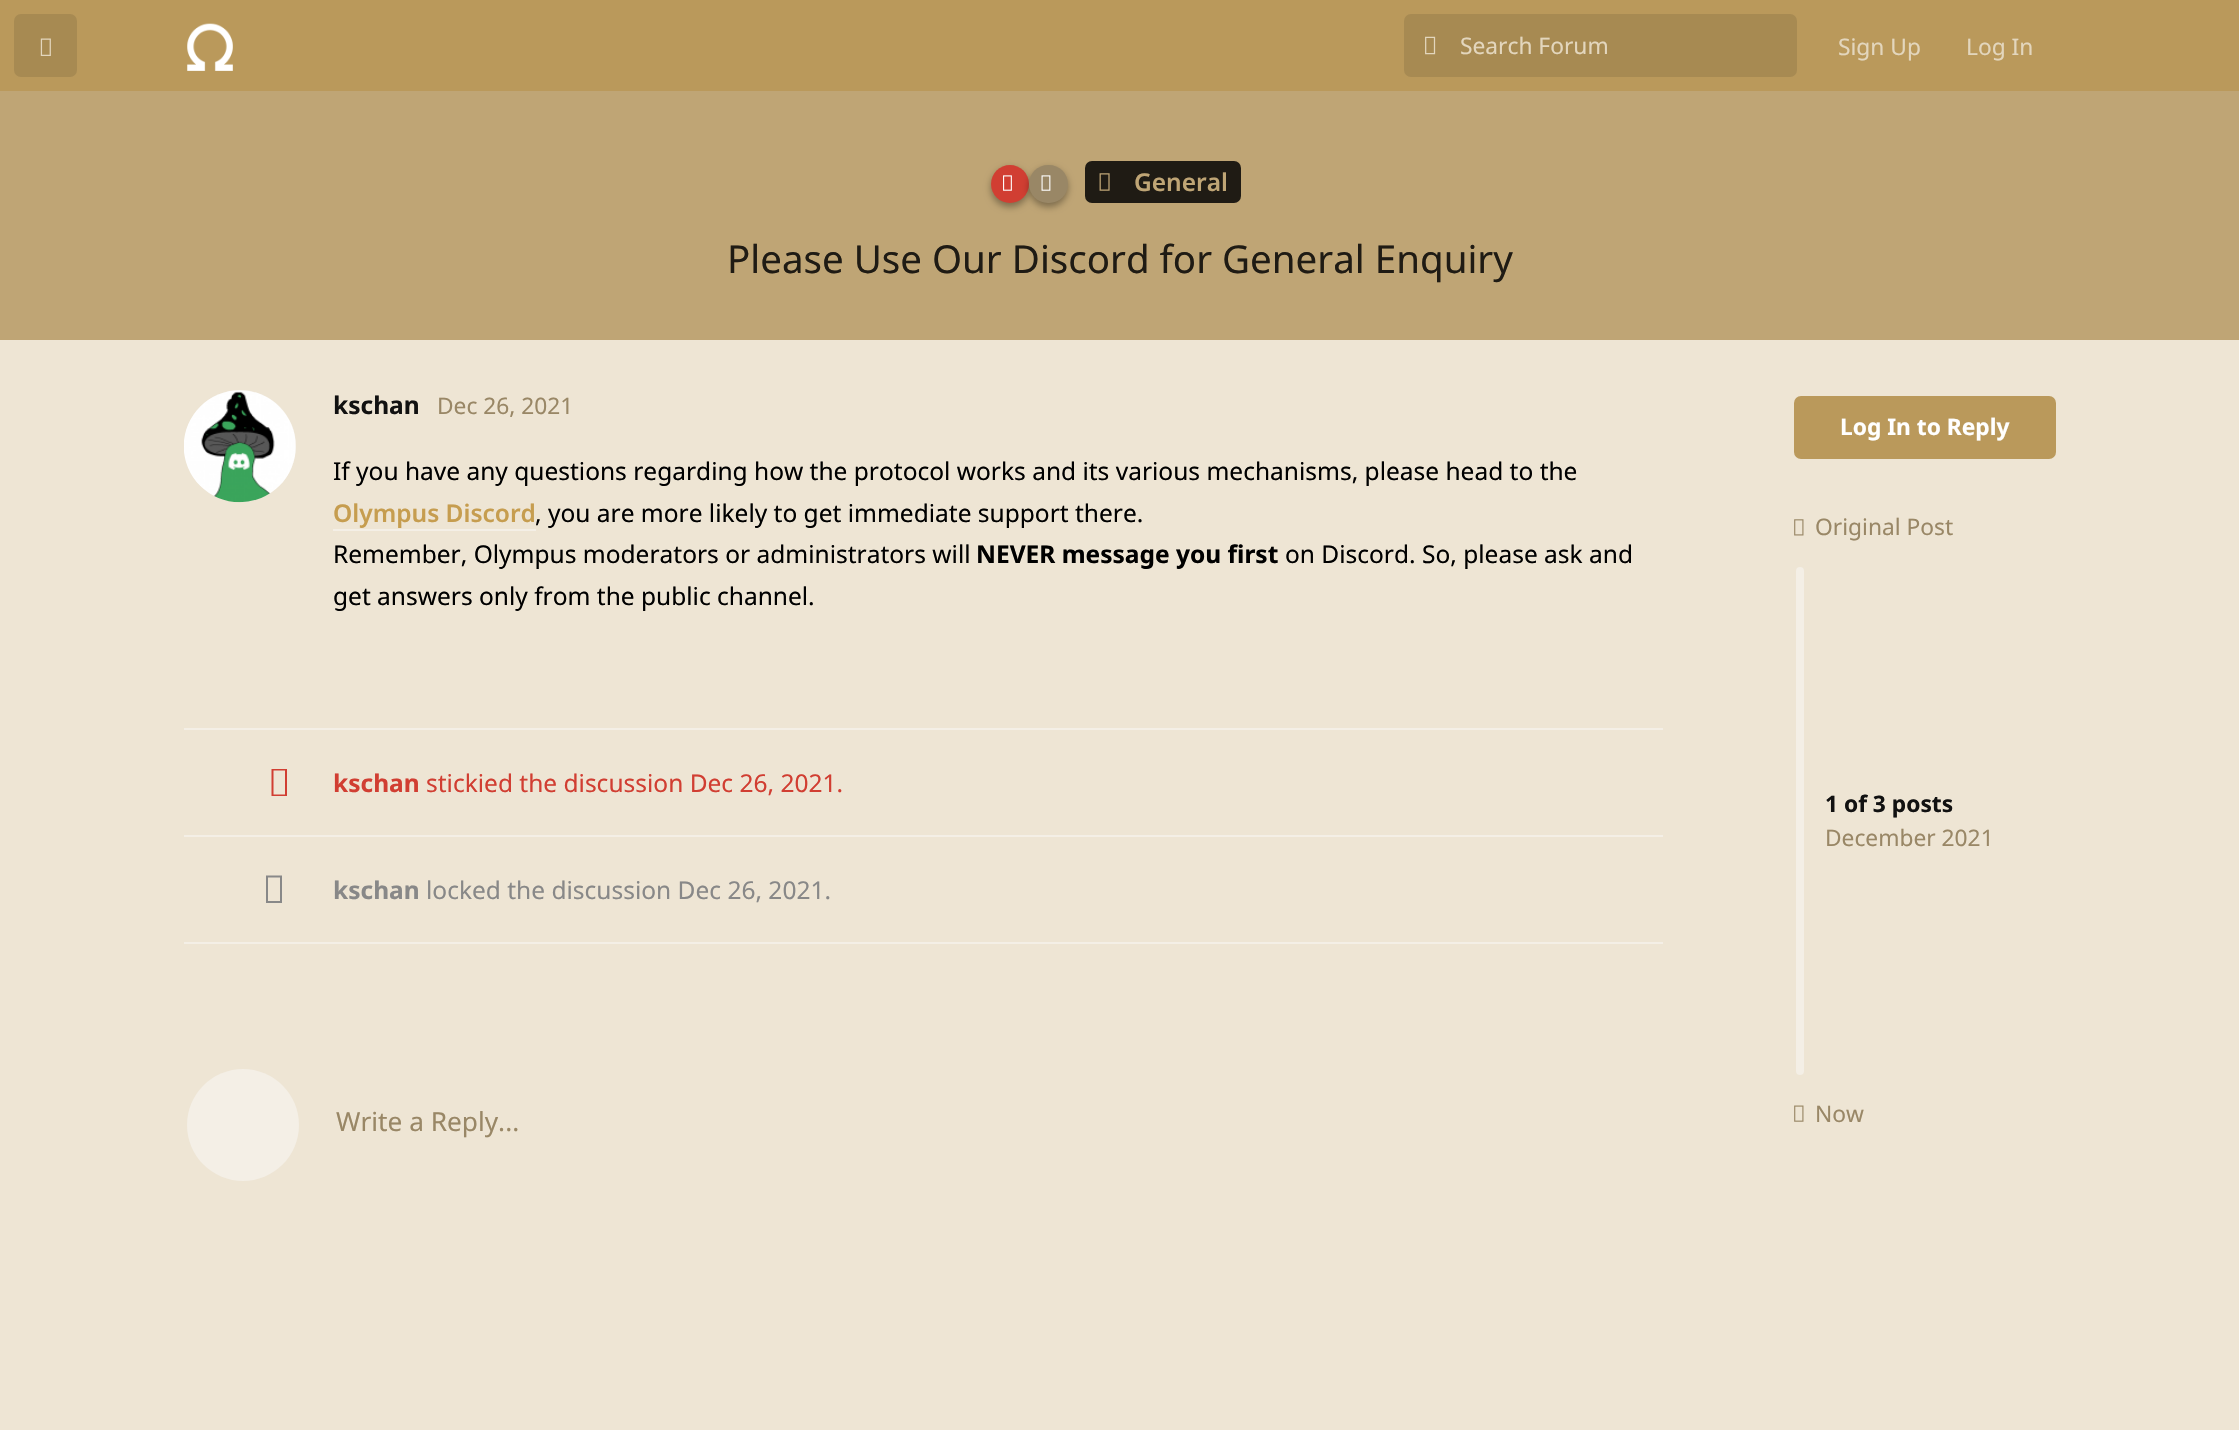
void draw(SkCanvas* c) {
SkPaint p;
p.setAntiAlias(true);
auto F=[&](const char* family, int weight, float size, bool italic = false){SkFontStyle style(weight, SkFontStyle::kNormal_Width,italic ? SkFontStyle::kItalic_Slant : SkFontStyle::kUpright_Slant);SkFont result(fontMgr->matchFamilyStyle(family, style), size);result.setSubpixel(true);return result;};
auto T=[&](const char* s, float x, float y, const SkFont& font){c->drawString(s, x, y, font, p);};
auto R=[&](float x, float y, float w, float h){c->drawRect(SkRect::MakeXYWH(x, y, w, h), p);};
auto Q=[&](float x, float y, float w, float h, float radius){c->drawRoundRect(SkRect::MakeXYWH(x, y, w, h), radius, radius, p);};
auto I=[&](const char* path, float x, float y, float w, float h){auto image = SkImages::DeferredFromEncodedData(SkData::MakeFromFileName(path));c->drawImageRect(image, SkRect::MakeXYWH(x, y, w, h), SkSamplingOptions());};
auto P=[&](const char* data, bool evenOdd = false){SkPath result = *SkParsePath::FromSVGString(data);if (evenOdd) result.setFillType(SkPathFillType::kEvenOdd);return result;};
c->clear(0xffeee5d4);
p.setColor(0xffba995b);
R(0,0,2239,91);
p.setColor(0xffa78a52);
Q(14,14,63,63,7);
I("1.png",40,38,11,18);
I("2.png",187,23,46,48);
Q(1404,14,393,63,7);
I("3.png",1425,36,11,19);
auto f1 = F("Noto Sans",400,22.75);
p.setColor(0xffe3d6bd);
T("Search Forum",1460,54,f1);
T("Sign Up",1838,55,f1);
T("Log In",1966,55,f1);
p.setColor(0xffbfa575);
R(0,91,2239,249);
p.setColor(0x59000000);
p.setMaskFilter(SkMaskFilter::MakeBlur(kNormal_SkBlurStyle, 3.5));
c->drawRoundRect(SkRect::MakeXYWH(991,168,38,39),19,19,p);
p.setMaskFilter(nullptr);
p.setColor(0xffd13e32);
c->drawCircle(1010,184,19,p);
I("4.png",1003,175,9,16);
p.setColor(0x59000000);
p.setMaskFilter(SkMaskFilter::MakeBlur(kNormal_SkBlurStyle, 3.5));
c->drawRoundRect(SkRect::MakeXYWH(1029,168,39,39),19.5,19.5,p);
p.setMaskFilter(nullptr);
p.setColor(0xff998766);
Q(1029,165,39,38,19);
I("5.png",1041,175,10,16);
p.setColor(0xff1f1b14);
Q(1085,161,156,42,7);
I("6.png",1099,173,11,18);
auto f2 = F("Noto Sans",600,24.5);
p.setColor(0xffbfa575);
T("General",1134,191,f2);
auto f3 = F("Noto Sans",400,38.5);
p.setColor(0xff1f1b14);
T("Please Use Our Discord for General Enquiry",727,273,f3);
p.setColor(0xfff4efe6);
R(184,728,1479,2);
c->drawCircle(240,446,56,p);
I("7.png",184,390,112,113);
auto f4 = F("Noto Sans",700,24.5);
p.setColor(0xff111111);
T("kschan",333,414,f4);
p.setColor(0xff998766);
T("Dec 26, 2021",437,414,f1);
auto f5 = F("Noto Sans",400,24.5);
p.setColor(0xff000000);
T("If you have any questions regarding how the protocol works and its various mechanisms, please head to the",333,480,f5);
p.setColor(0xffc69d4f);
T("Olympus Discord",333,522,f2);
p.setColor(0xfff4efe6);
R(333,529,203,2);
p.setColor(0xff000000);
T(", you are more likely to get immediate support there.",535,522,f5);
T("Remember, Olympus moderators or administrators will",333,563,f5);
T("NEVER message you first",976,563,f4);
T("on Discord. So, please ask and",1285,563,f5);
T("get answers only from the public channel.",333,605,f5);
p.setColor(0xfff4efe6);
R(184,835,1479,2);
p.setColor(0xffd13e32);
c->drawPath(P("M271.5 796v-27h15.5v27zm2-1.5h11.5v-24h-11.5z"),p);
T("kschan",333,792,f4);
T("stickied the discussion Dec 26, 2021.",426,792,f5);
p.setColor(0xfff4efe6);
R(184,942,1479,2);
p.setColor(0xff888888);
c->drawPath(P("M266 903v-27.5h16v27.5zm2-2h12v-23.5h-12z"),p);
T("kschan",333,899,f4);
T("locked the discussion Dec 26, 2021.",426,899,f5);
p.setColor(0xfff4efe6);
c->drawCircle(243,1125,56,p);
auto f6 = F("Noto Sans",400,26.25);
p.setColor(0xff998766);
T("Write a Reply...",336,1131,f6);
p.setColor(0xffba995b);
Q(1794,396,262,63,7);
auto f7 = F("Noto Sans",700,22.75);
p.setColor(0xffffffff);
T("Log In to Reply",1840,435,f7);
I("8.png",1794,519,10,17);
p.setColor(0xff998766);
T("Original Post",1815,535,f1);
p.setColor(0xfff4efe6);
Q(1796,567,8,508,4);
p.setColor(0xff111111);
T("1 of 3 posts",1825,812,f7);
p.setColor(0xff998766);
T("December 2021",1825,846,f1);
I("9.png",1794,1105,10,17);
T("Now",1815,1122,f1);
}
